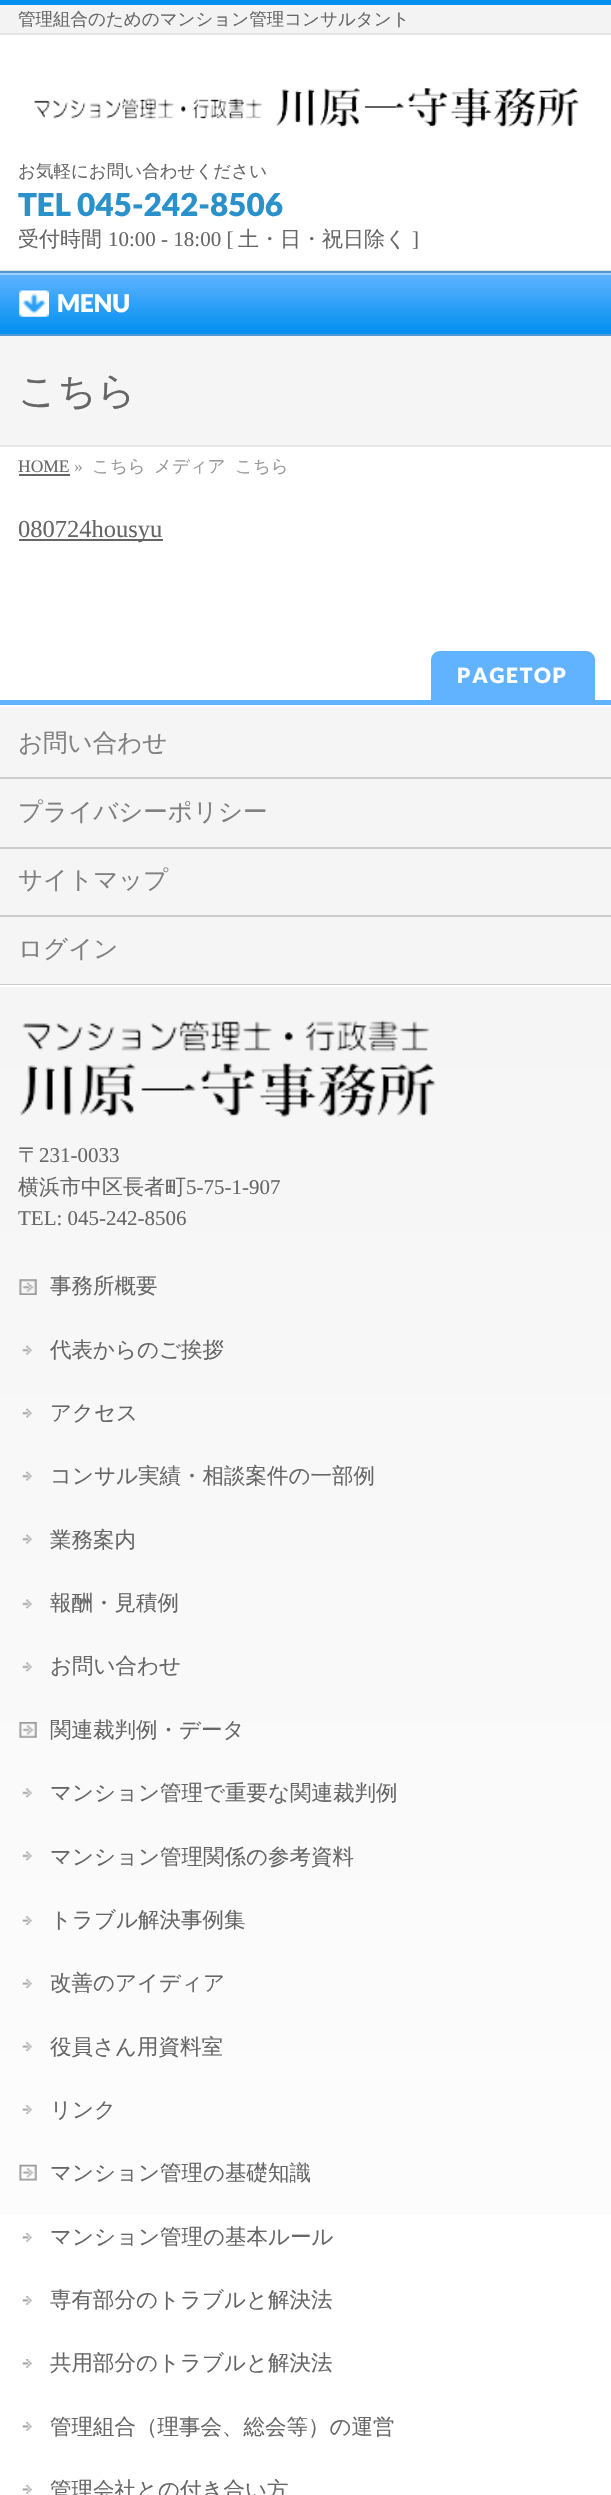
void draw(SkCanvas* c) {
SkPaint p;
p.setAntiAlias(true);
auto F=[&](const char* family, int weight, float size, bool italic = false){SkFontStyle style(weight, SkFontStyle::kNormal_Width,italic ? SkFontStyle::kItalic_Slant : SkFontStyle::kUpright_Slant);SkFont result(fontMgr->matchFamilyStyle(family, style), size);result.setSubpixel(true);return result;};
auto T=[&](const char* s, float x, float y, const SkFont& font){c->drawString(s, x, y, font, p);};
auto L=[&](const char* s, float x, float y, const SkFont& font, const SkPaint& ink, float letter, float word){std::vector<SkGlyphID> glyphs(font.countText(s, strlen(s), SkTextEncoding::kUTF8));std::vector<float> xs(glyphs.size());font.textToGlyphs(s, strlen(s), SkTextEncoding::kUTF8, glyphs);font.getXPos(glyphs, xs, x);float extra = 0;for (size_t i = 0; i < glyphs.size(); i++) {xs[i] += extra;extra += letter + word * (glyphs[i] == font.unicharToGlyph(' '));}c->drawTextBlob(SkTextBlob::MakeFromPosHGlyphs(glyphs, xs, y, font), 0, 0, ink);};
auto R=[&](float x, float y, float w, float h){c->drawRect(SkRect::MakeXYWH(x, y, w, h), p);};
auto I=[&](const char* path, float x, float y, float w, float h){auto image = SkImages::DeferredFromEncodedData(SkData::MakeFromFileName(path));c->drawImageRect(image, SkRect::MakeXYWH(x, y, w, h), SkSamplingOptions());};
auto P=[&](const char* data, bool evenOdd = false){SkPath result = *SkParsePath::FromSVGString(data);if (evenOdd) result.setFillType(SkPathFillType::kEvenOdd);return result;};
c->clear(0xffffffff);
p.setColor(0xfff3f3f3);
R(0,5,611,28);
p.setColor(0xff0490f0);
R(0,0,611,5);
auto f1 = F("WenQuanYi Zen Hei",500,17.5);
p.setColor(0xff666666);
T("管理組合のためのマンション管理コンサルタント",18,25,f1);
p.setColor(0xffe4e4e4);
R(0,33,611,2);
R(0,270,611,1);
I("1.png",34,87,546,41);
p.setColor(0xff666666);
T("お気軽にお問い合わせください",18,177,f1);
auto f2 = F("Lato",900,31.5);
p.setColor(0xff2b91cb);
T("TEL 045-242-8506",18,216,f2);
auto f3 = F("WenQuanYi Zen Hei",500,21);
p.setColor(0xff666666);
T("受付時間",18,246,f3);
auto f4 = F("Liberation Serif",400,21);
T("10:00 - 18:00 [",108,246,f4);
T("土・日・祝日除く",238,246,f3);
T("]",412,246,f4);
{
const SkColor colors[] = {0xff61b3ff,0xff008fef};
const float stops[] = {0,1};
const SkPoint ends[] = {{306,273}, {306,334}};
p.setShader(SkGradientShader::MakeLinear(ends, colors, stops, 2, SkTileMode::kClamp));
p.setAlpha(255);
}
R(0,275,611,59);
p.setShader(nullptr);
p.setColor(0xff9fd1ff);
R(0,273,611,2);
p.setColor(0xff5197d5);
R(0,271,611,2);
R(0,334,611,2);
I("2.png",19,290,30,27);
auto f5 = F("Lato",900,24.5);
p.setColor(0xffffffff);
T("MENU",57,312,f5);
p.setColor(0xfff5f5f5);
R(0,336,611,109);
p.setColor(0xffe5e5e5);
R(0,445,611,2);
auto f6 = F("WenQuanYi Zen Hei",500,38.5);
p.setColor(0xff666666);
T("こちら",18,404,f6);
auto f7 = F("Liberation Serif",400,17.5);
T("HOME",18,472,f7);
R(19,474,51,2);
p.setColor(0xff999999);
T("»",74,472,f7);
T("こちら",92,472,f1);
T("メディア",154,472,f1);
T("こちら",235,472,f1);
p.setColor(0xff666666);
R(19,539,144,2);
auto f8 = F("Liberation Serif",400,24.5);
T("080724housyu",18,537,f8);
p.setColor(0xff61b3ff);
c->drawPath(P("M440 651h146c5 0 9 4 9 9v40h-164v-40c0-5 4-9 9-9z"),p);
auto f9 = F("Lato",900,21);
p.setColor(0xffffffff);
L("PAGETOP",457,683,f9,p,1.75,0);
p.setColor(0xfff5f5f5);
R(0,707,611,277);
p.setColor(0xff61b3ff);
R(0,700,611,5);
p.setColor(0xffcccccc);
R(0,777,611,2);
auto f10 = F("WenQuanYi Zen Hei",500,24.5);
p.setColor(0xff808080);
T("お問い合わせ",18,751,f10);
p.setColor(0xffcccccc);
R(0,847,611,2);
p.setColor(0xff808080);
T("プライバシーポリシー",18,820,f10);
p.setColor(0xffcccccc);
R(0,915,611,2);
p.setColor(0xff808080);
T("サイトマップ",18,888,f10);
p.setColor(0xffcccccc);
R(0,984,611,1);
p.setColor(0xff808080);
T("ログイン",18,957,f10);
{
const SkColor colors[] = {0xfff5f5f5,0xffffffff};
const float stops[] = {0,1};
const SkPoint ends[] = {{0,985}, {0,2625}};
p.setShader(SkGradientShader::MakeLinear(ends, colors, stops, 2, SkTileMode::kClamp));
p.setAlpha(255);
}
R(0,987,611,1228);
I("3.png",19,1020,417,97);
p.setShader(nullptr);
p.setColor(0xff666666);
T("〒",18,1162,f3);
T("231-0033",39,1162,f4);
T("横浜市中区長者町",18,1194,f3);
T("5-75-1-907",186,1194,f4);
T("TEL: 045-242-8506",18,1225,f4);
I("4.png",19,1279,18,16);
auto f11 = F("WenQuanYi Zen Hei",500,21.5);
T("事務所概要",50,1293,f11);
I("5.png",22,1345,10,10);
T("代表からのご挨拶",50,1357,f11);
I("6.png",22,1408,10,10);
T("アクセス",50,1420,f11);
I("6.png",22,1471,10,10);
T("コンサル実績・相談案件の一部例",50,1483,f11);
I("6.png",22,1534,10,10);
T("業務案内",50,1547,f11);
I("7.png",22,1599,10,10);
T("報酬・見積例",50,1610,f11);
I("7.png",22,1662,10,10);
T("お問い合わせ",50,1673,f11);
I("8.png",19,1722,18,16);
T("関連裁判例・データ",50,1737,f11);
I("9.png",22,1788,10,10);
T("マンション管理で重要な関連裁判例",50,1800,f11);
I("10.png",22,1851,10,10);
T("マンション管理関係の参考資料",50,1864,f11);
I("11.png",22,1916,10,9);
T("トラブル解決事例集",50,1927,f11);
I("11.png",22,1979,10,9);
T("改善のアイディア",50,1990,f11);
I("11.png",22,2042,10,9);
T("役員さん用資料室",50,2054,f11);
I("12.png",22,2105,10,9);
T("リンク",50,2117,f11);
I("13.png",19,2164,18,17);
T("マンション管理の基礎知識",50,2180,f11);
I("14.png",22,2233,10,9);
T("マンション管理の基本ルール",50,2244,f11);
I("14.png",22,2296,10,9);
T("専有部分のトラブルと解決法",50,2307,f11);
I("14.png",22,2359,10,9);
T("共用部分のトラブルと解決法",50,2370,f11);
I("15.png",22,2422,10,9);
T("管理組合（理事会、総会等）の運営",50,2434,f11);
I("15.png",22,2485,10,9);
T("管理会社との付き合い方",50,2497,f11);
}
